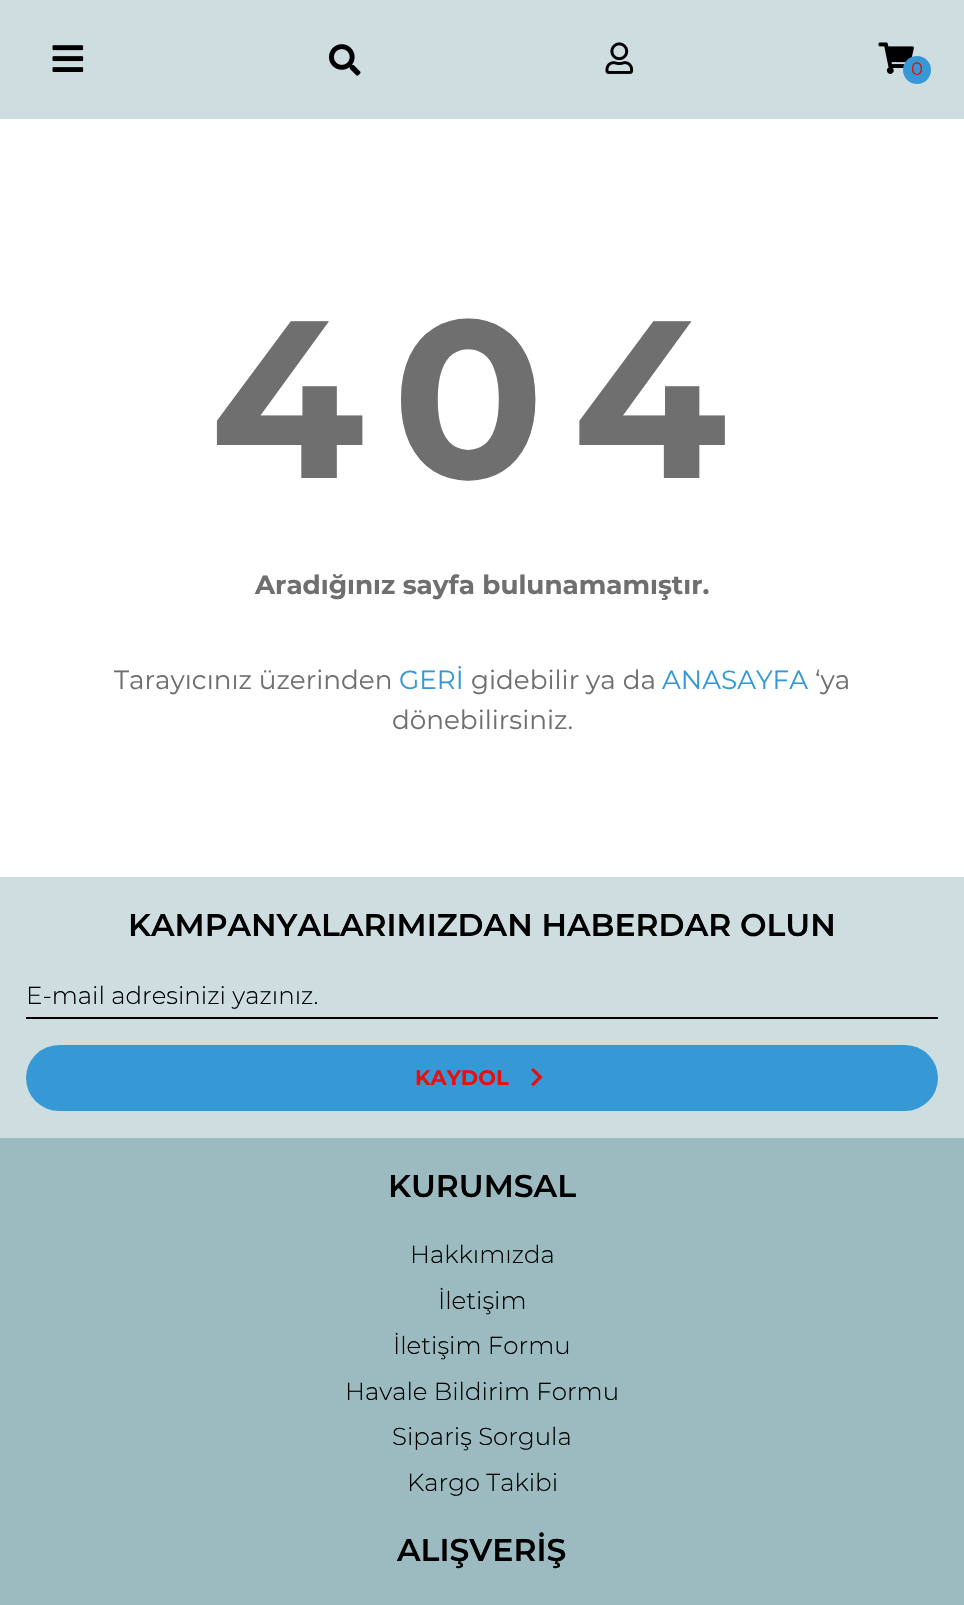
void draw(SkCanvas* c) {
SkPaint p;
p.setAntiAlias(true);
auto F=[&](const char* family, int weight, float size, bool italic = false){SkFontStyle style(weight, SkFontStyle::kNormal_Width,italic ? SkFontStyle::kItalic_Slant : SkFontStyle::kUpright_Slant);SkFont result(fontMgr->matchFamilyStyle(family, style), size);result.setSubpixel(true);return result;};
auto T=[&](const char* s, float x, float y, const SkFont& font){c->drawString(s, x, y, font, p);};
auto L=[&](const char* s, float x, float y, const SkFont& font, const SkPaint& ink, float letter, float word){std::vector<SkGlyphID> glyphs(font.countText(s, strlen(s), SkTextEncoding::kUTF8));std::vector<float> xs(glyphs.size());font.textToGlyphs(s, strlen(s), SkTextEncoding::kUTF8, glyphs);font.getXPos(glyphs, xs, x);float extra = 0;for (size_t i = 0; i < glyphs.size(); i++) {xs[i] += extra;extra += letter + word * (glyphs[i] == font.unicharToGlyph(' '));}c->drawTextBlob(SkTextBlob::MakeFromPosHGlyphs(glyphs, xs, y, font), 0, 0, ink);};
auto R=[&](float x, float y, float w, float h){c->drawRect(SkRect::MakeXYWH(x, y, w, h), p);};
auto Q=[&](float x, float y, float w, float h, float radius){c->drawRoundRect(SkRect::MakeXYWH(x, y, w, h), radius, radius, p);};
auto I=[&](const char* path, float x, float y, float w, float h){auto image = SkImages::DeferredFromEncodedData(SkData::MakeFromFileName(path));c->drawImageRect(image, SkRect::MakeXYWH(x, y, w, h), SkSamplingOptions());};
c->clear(0xffffffff);
p.setColor(0xffcedde0);
R(0,0,964,119);
I("1.png",52,45,32,27);
I("2.png",329,44,32,32);
I("3.png",605,42,29,32);
I("4.png",878,42,36,32);
p.setColor(0xff3699d5);
c->drawCircle(917,70,14,p);
auto f1 = F("Montserrat",400,18);
p.setColor(0xffe51010);
T("0",911,75,f1);
auto f2 = F("Montserrat",700,224);
p.setColor(0xff6f6f6f);
L("404",210,478,f2,p,28,0);
auto f3 = F("Montserrat",700,26.25);
T("Aradığınız sayfa bulunamamıştır.",255,594,f3);
auto f4 = F("Montserrat",400,26.25);
T("Tarayıcınız üzerinden",114,689,f4);
p.setColor(0xff3699d5);
T("GERİ",399,689,f4);
p.setColor(0xff6f6f6f);
T("gidebilir ya da",471,689,f4);
p.setColor(0xff3699d5);
T("ANASAYFA",662,689,f4);
p.setColor(0xff6f6f6f);
T("‘ya",815,689,f4);
T("dönebilirsiniz.",392,729,f4);
p.setColor(0xffcedde0);
R(0,877,964,261);
auto f5 = F("Montserrat",600,31.5);
p.setColor(0xff000000);
T("KAMPANYALARIMIZDAN HABERDAR OLUN",128,936,f5);
R(26,1017,912,2);
auto f6 = F("Montserrat",300,24.5);
T("E-mail adresinizi yazınız.",26,1004,f6);
p.setColor(0xff3699d5);
Q(26,1045,912,66,33);
auto f7 = F("Montserrat",700,21);
p.setColor(0xffe51010);
T("KAYDOL",415,1085,f7);
I("5.png",531,1068,12,19);
p.setColor(0xff9cbbc0);
R(0,1138,964,467);
p.setColor(0xff000000);
T("KURUMSAL",388,1197,f5);
T("Hakkımızda",410,1263,f6);
T("İletişim",438,1309,f6);
T("İletişim Formu",393,1354,f6);
T("Havale Bildirim Formu",345,1400,f6);
T("Sipariş Sorgula",392,1445,f6);
T("Kargo Takibi",407,1491,f6);
T("ALIŞVERİŞ",397,1561,f5);
}
